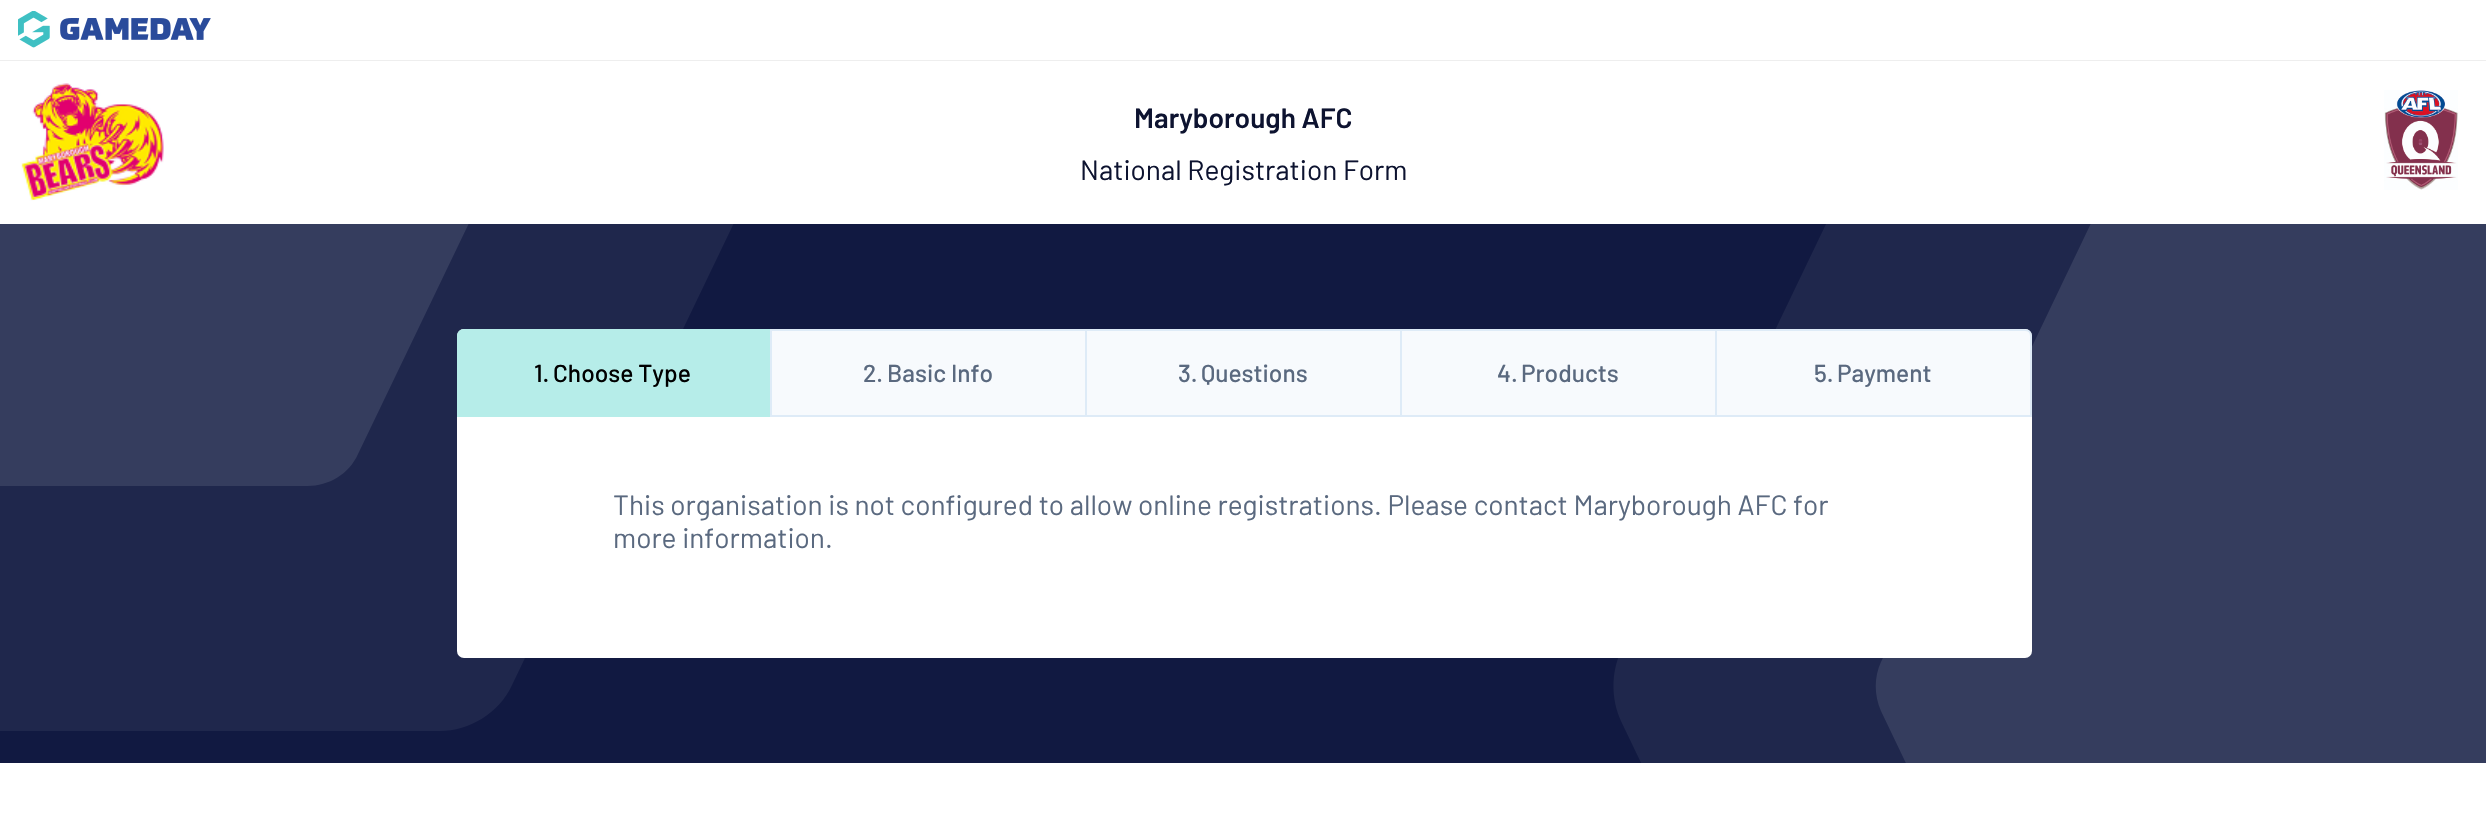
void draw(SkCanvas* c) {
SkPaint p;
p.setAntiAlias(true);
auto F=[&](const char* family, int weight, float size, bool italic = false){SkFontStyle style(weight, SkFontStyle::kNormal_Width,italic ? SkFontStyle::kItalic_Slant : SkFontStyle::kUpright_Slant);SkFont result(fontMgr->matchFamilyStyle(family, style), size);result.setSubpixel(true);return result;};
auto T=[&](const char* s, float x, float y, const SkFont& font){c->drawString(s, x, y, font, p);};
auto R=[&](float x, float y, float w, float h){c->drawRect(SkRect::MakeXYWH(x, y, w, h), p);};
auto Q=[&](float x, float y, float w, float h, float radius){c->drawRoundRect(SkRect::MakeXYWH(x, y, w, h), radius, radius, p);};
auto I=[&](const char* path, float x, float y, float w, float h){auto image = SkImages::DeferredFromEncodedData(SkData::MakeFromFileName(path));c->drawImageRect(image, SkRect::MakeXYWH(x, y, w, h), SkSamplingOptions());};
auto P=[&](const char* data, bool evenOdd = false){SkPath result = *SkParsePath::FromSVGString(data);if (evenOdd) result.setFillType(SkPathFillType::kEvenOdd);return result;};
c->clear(0xff111941);
p.setColor(0xff1f274c);
c->drawPath(P("M-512-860c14-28 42-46 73-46h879c31 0 59 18 72 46l354 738c10 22 10 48 0 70l-354 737c-13 28-42 46-73 46h-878c-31 0-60-18-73-46l-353-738c-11-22-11-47 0-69z"),p);
p.setColor(0xff353d5e);
c->drawPath(P("M-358-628c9-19 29-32 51-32h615c21 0 41 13 51 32l247 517c7 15 7 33 0 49l-248 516c-9 20-29 32-51 32h-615c-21 0-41-13-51-32l-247-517c-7-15-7-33 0-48z"),p);
p.setColor(0xff1f274c);
c->drawPath(P("M1975-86c13-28 42-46 73-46h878c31 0 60 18 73 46l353 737c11 22 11 48 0 70l-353 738c-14 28-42 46-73 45h-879c-31 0-59-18-72-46l-354-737c-10-22-10-48 0-70z"),p);
p.setColor(0xff353d5e);
c->drawPath(P("M2128 146c10-20 30-32 51-32h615c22 0 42 12 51 32l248 516c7 16 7 34 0 49l-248 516c-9 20-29 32-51 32h-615c-22 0-41-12-51-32l-247-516c-7-16-7-34 0-49z"),p);
p.setColor(0xffffffff);
R(0,0,2486,60);
p.setColor(0xffeeeeee);
R(0,60,2486,1);
I("1.png",18,11,193,37);
p.setColor(0xffffffff);
R(0,61,2486,163);
I("2.png",21,83,143,118);
auto f1 = F("Barlow",600,28);
p.setColor(0xff0d1330);
T("Maryborough AFC",1134,128,f1);
auto f2 = F("Barlow",400,28);
T("National Registration Form",1080,180,f2);
I("3.png",2384,90,74,100);
p.setColor(0xffffffff);
Q(457,329,1575,329,7);
p.setColor(0xffb6ede9);
c->drawPath(P("M464 329h306v88h-313v-81c0-4 3-7 7-7z"),p);
auto f3 = F("Barlow",500,24.5);
p.setColor(0xff000000);
T("1.",534,382,f3);
T("Choose Type",553,382,f3);
p.setColor(0xfff7fafd);
R(772,331,313,84);
p.setColor(0xffdeebf7);
R(770,329,945,2);
R(770,415,945,2);
R(770,329,2,88);
p.setColor(0xff5a697f);
T("2.",863,382,f3);
T("Basic Info",887,382,f3);
p.setColor(0xfff7fafd);
R(1087,331,313,84);
p.setColor(0xffdeebf7);
R(1085,329,2,88);
p.setColor(0xff5a697f);
T("3.",1178,382,f3);
T("Questions",1201,382,f3);
p.setColor(0xfff7fafd);
R(1402,331,313,84);
p.setColor(0xffdeebf7);
R(1400,329,2,88);
p.setColor(0xff5a697f);
T("4.",1497,382,f3);
T("Products",1521,382,f3);
p.setColor(0xfff7fafd);
c->drawPath(P("M1716 330h309c3.5 0 6 2.5 6 6v80h-315z"),p);
p.setStroke(true);
p.setStrokeWidth(2);
p.setColor(0xffdeebf7);
c->drawPath(P("M1716 330h309c3.5 0 6 2.5 6 6v80h-315z"),p);
p.setStroke(false);
p.setColor(0xff5a697f);
T("5.",1814,382,f3);
T("Payment",1837,382,f3);
T("This organisation is not configured to allow online registrations. Please contact Maryborough AFC for",613,515,f2);
T("more information.",613,548,f2);
p.setColor(0xffffffff);
R(0,763,2486,62);
}
